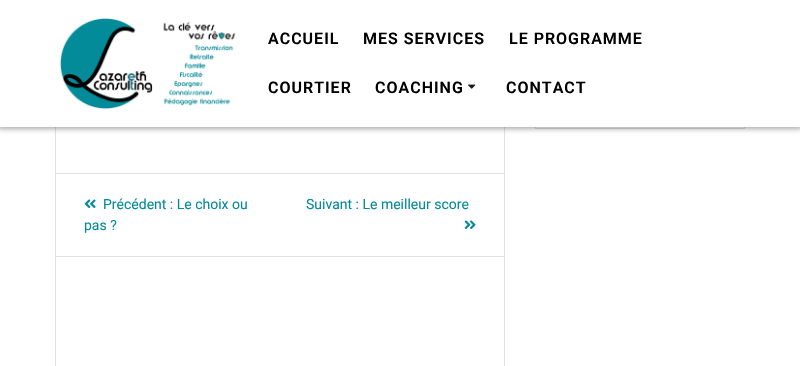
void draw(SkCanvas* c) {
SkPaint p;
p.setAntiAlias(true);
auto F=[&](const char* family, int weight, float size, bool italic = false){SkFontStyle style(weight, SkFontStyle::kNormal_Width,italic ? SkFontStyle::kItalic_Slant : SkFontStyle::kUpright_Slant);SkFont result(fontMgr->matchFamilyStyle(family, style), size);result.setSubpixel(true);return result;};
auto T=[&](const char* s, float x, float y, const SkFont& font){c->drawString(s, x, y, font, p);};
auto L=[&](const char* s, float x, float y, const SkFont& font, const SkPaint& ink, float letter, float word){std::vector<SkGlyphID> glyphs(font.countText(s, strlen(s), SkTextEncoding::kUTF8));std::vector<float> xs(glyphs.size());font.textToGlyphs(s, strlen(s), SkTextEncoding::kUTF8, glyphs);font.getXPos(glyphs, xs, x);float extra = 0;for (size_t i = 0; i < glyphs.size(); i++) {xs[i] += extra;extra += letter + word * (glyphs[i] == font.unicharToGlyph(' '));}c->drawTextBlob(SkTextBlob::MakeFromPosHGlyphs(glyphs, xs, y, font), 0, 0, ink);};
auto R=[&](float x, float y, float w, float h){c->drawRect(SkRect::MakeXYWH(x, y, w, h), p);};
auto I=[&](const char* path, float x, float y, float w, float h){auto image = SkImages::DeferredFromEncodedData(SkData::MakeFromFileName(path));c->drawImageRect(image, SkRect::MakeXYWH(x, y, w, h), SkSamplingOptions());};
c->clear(0xffffffff);
p.setStroke(true);
p.setStrokeWidth(1);
p.setColor(0xffe0e1e1);
c->drawRect(SkRect::MakeXYWH(535.5,-.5,209,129),p);
c->drawRect(SkRect::MakeXYWH(55.5,-.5,449,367),p);
p.setStroke(false);
p.setColor(0x54000000);
p.setMaskFilter(SkMaskFilter::MakeBlur(kNormal_SkBlurStyle, 2.5));
c->drawRect(SkRect::MakeXYWH(-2,-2,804,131),p);
p.setMaskFilter(nullptr);
p.setColor(0xffffffff);
R(0,0,800,127);
I("1.png",59,18,177,92);
auto f1 = F("Roboto",600,16);
p.setColor(0xff000000);
L("ACCUEIL",268,44,f1,p,1,0);
L("MES SERVICES",363,44,f1,p,1,0);
L("LE PROGRAMME",509,44,f1,p,1,0);
L("COURTIER",268,93,f1,p,1,0);
L("COACHING",375,93,f1,p,1,0);
I("2.png",468,84,8,5);
L("CONTACT",506,93,f1,p,1,0);
p.setColor(0xffe0e1e1);
R(56,173,448,1);
R(56,256,448,1);
I("3.png",84,199,12,10);
auto f2 = F("Roboto",400,14);
p.setColor(0xff048b9a);
T("Précédent : Le choix ou",103,209,f2);
T("pas ?",84,230,f2);
T("Suivant : Le meilleur score",306,209,f2);
I("4.png",464,220,12,10);
}
